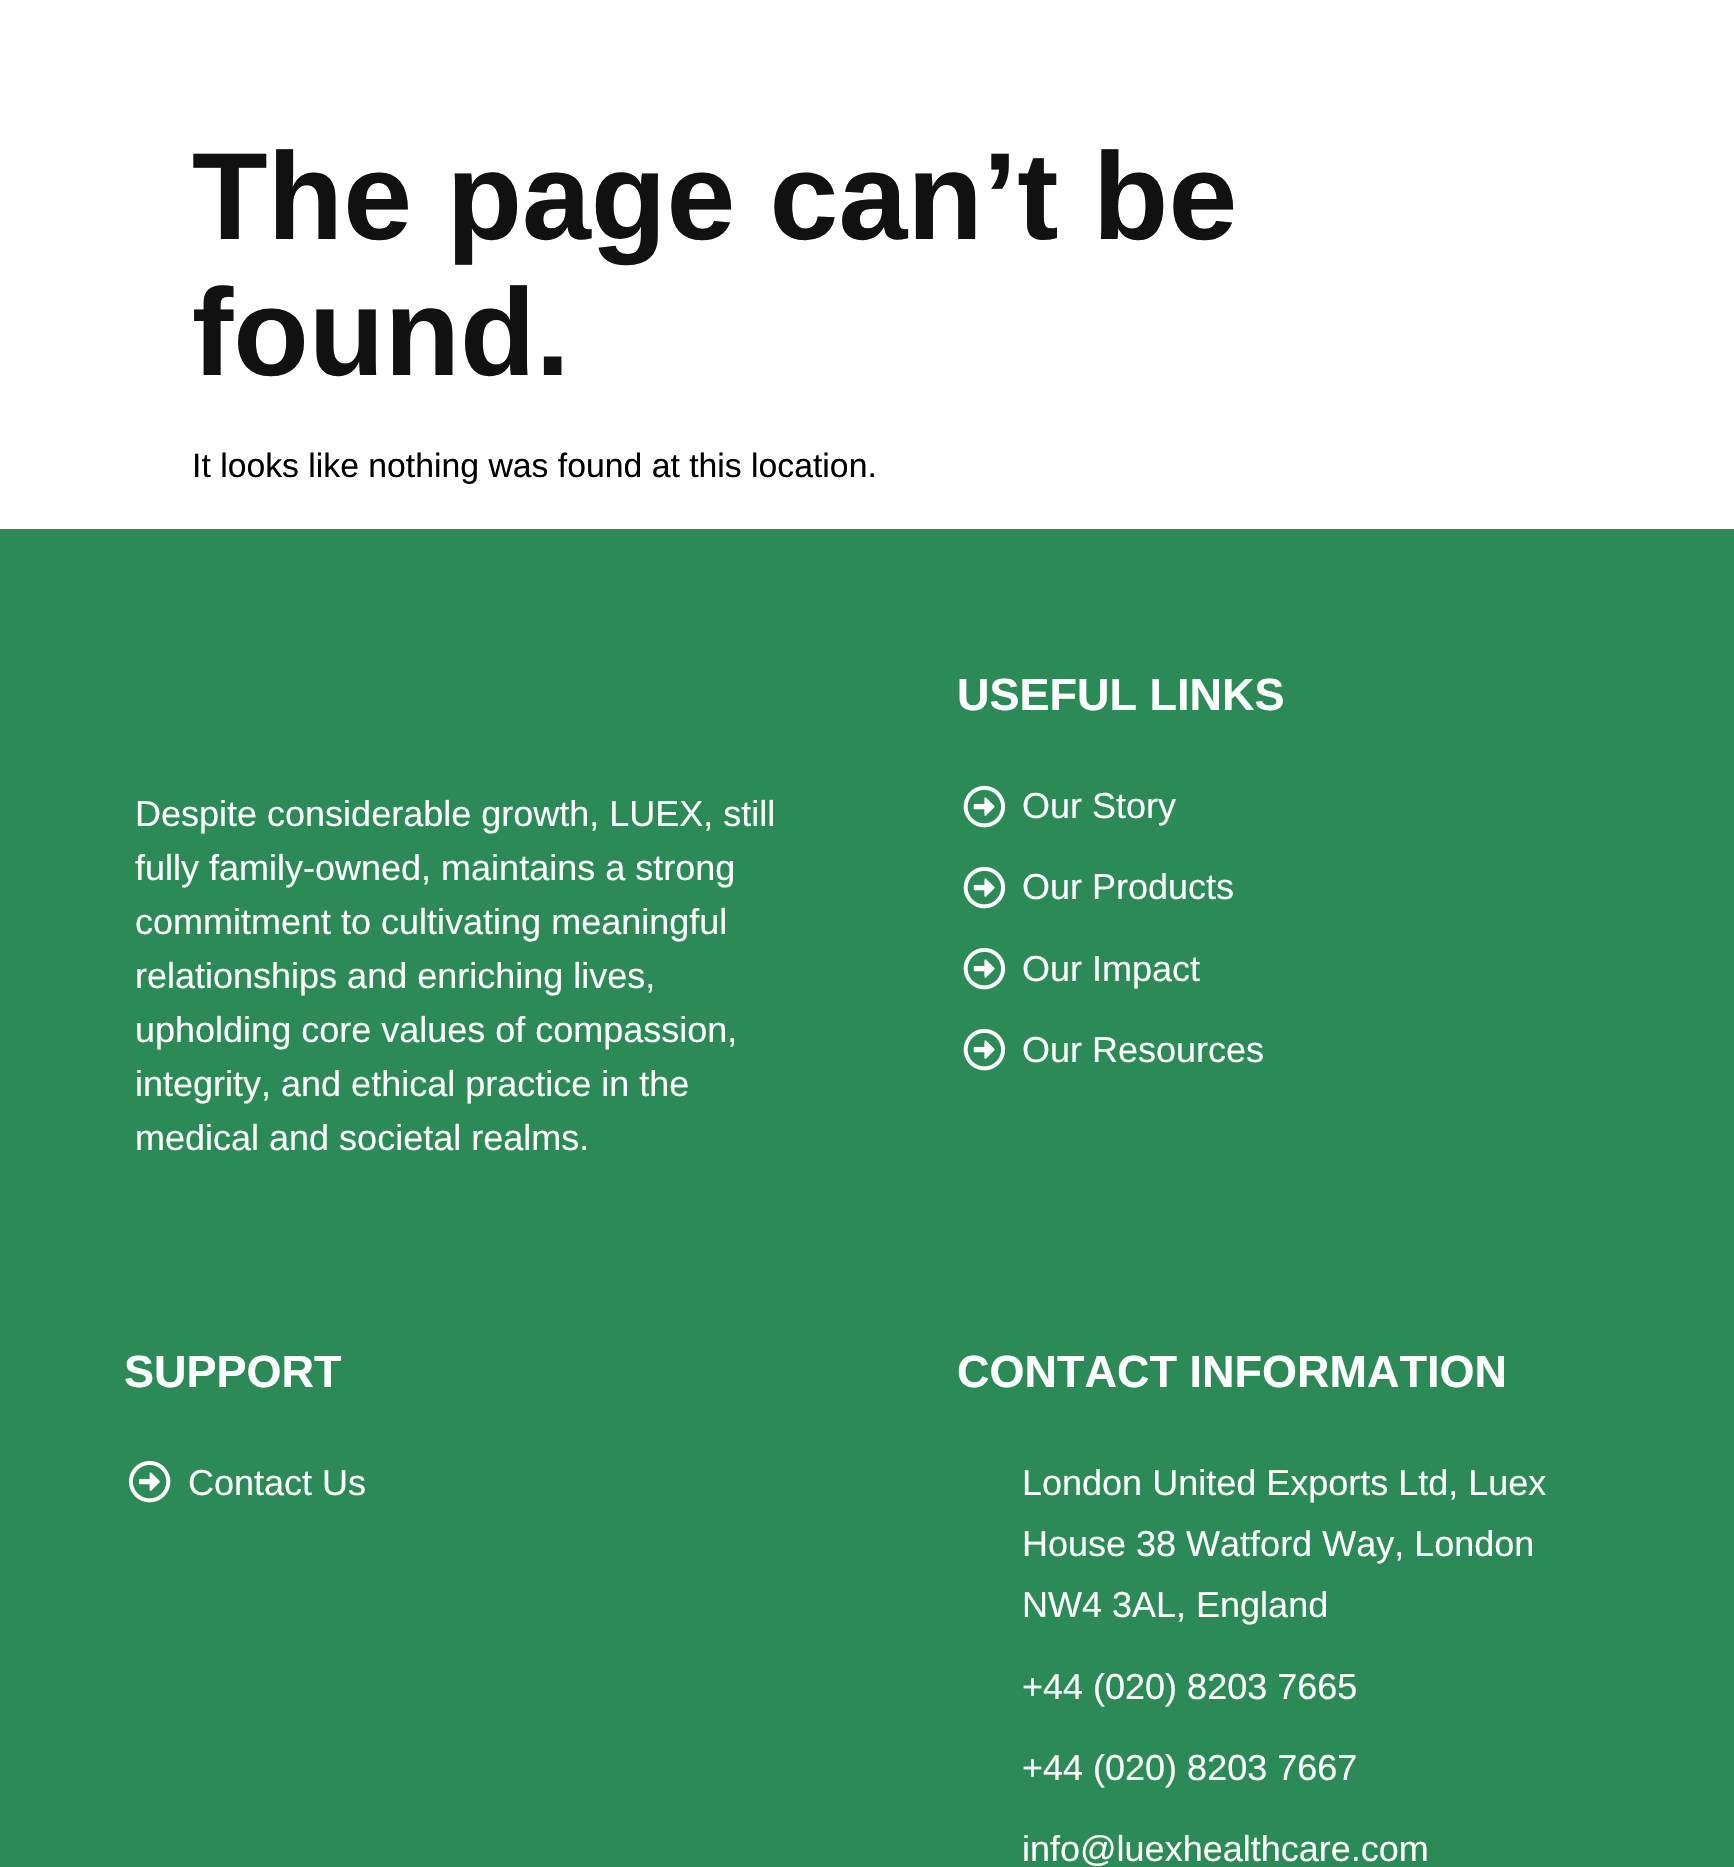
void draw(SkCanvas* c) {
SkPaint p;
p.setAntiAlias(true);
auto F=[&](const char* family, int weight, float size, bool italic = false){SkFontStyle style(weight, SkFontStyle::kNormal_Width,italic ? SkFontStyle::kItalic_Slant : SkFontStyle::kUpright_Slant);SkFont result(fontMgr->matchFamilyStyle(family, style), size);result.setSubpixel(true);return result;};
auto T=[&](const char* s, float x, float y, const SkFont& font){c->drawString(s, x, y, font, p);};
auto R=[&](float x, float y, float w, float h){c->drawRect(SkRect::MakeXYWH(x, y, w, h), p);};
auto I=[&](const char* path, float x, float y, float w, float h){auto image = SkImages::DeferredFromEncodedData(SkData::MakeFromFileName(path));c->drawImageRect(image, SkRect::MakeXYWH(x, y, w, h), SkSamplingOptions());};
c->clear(0xffffffff);
auto f1 = F("Liberation Sans",700,123.75);
p.setColor(0xff111111);
T("The page can’t be",192,239,f1);
T("found.",192,375,f1);
auto f2 = F("Liberation Sans",400,33.75);
p.setColor(0xff000000);
T("It looks like nothing was found at this location.",192,477,f2);
{
const SkColor colors[] = {0xff03c55b,0xff2b8a56};
const float stops[] = {0,.28};
const SkPoint ends[] = {{867,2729}, {867,529}};
p.setShader(SkGradientShader::MakeLinear(ends, colors, stops, 2, SkTileMode::kClamp));
p.setAlpha(255);
}
R(0,529,1734,1338);
auto f3 = F("Liberation Sans",400,36);
p.setShader(nullptr);
p.setColor(0xffffffff);
T("Despite considerable growth, LUEX, still",135,826,f3);
T("fully family-owned, maintains a strong",135,880,f3);
T("commitment to cultivating meaningful",135,934,f3);
T("relationships and enriching lives,",135,988,f3);
T("upholding core values of compassion,",135,1042,f3);
T("integrity, and ethical practice in the",135,1096,f3);
T("medical and societal realms.",135,1150,f3);
auto f4 = F("Liberation Sans",700,45);
T("USEFUL LINKS",957,710,f4);
I("1.png",963,785,43,43);
T("Our Story",1022,818,f3);
I("1.png",963,866,43,43);
T("Our Products",1022,899,f3);
I("1.png",963,947,43,43);
T("Our Impact",1022,981,f3);
I("1.png",963,1028,43,43);
T("Our Resources",1022,1062,f3);
T("SUPPORT",124,1387,f4);
I("2.png",128,1460,43,43);
T("Contact Us",188,1495,f3);
T("CONTACT INFORMATION",957,1387,f4);
T("London United Exports Ltd, Luex",1022,1495,f3);
T("House 38 Watford Way, London",1022,1556,f3);
T("NW4 3AL, England",1022,1617,f3);
T("+44 (020) 8203 7665",1022,1699,f3);
T("+44 (020) 8203 7667",1022,1780,f3);
T("info@luexhealthcare.com",1022,1861,f3);
}
